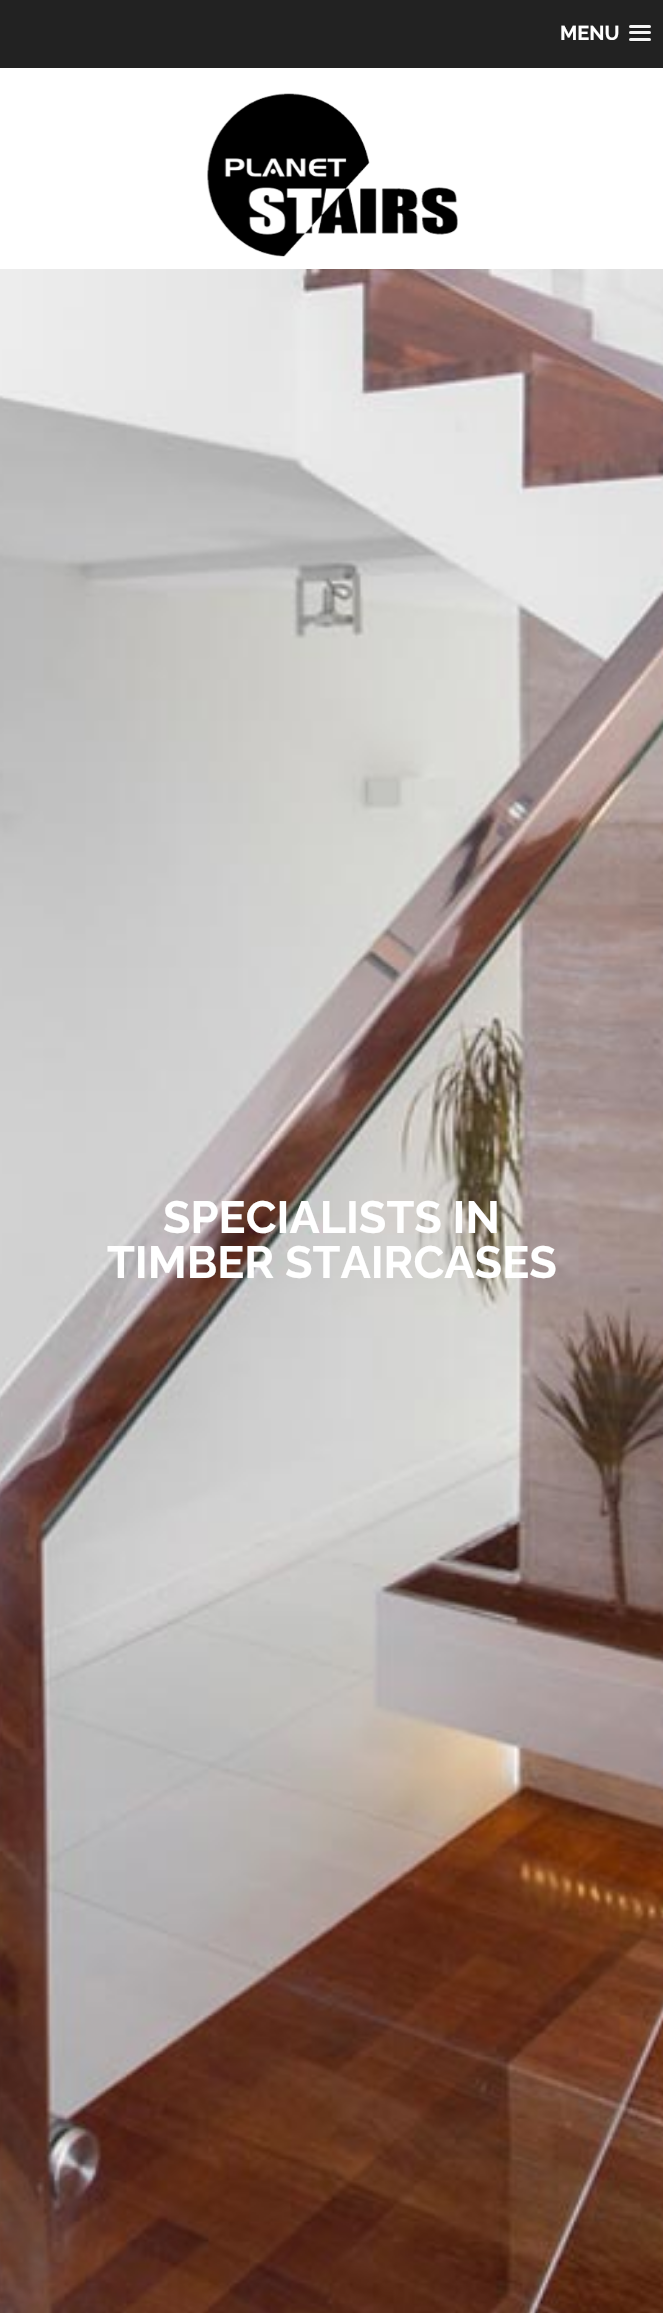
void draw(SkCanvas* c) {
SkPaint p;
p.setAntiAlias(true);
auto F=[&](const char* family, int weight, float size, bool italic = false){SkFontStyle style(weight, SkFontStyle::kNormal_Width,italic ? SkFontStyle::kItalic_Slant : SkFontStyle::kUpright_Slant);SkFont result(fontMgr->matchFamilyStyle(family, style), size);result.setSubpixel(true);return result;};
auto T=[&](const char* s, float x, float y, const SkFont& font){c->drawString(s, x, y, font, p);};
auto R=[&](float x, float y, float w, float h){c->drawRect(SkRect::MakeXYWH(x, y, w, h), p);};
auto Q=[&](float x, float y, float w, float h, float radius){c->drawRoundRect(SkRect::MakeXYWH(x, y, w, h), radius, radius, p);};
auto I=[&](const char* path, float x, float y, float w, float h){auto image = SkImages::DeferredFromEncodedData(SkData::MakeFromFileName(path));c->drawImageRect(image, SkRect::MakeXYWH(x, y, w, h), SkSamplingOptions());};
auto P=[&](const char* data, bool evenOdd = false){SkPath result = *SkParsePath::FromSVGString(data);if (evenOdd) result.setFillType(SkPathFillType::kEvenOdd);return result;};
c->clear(0xffffffff);
p.setColor(0xff222222);
R(0,0,663,68);
auto f1 = F("Raleway",700,20);
p.setColor(0xffffffff);
T("MENU",560,40,f1);
p.setColor(0xff1a1a1a);
c->drawPath(P("M629 27c-.5 2.5 4 2 4.5 2h13c.5 0 5 .5 4.5-2c-1 1-21 1-22 0z"),p);
p.setColor(0xfff5f5f5);
Q(629,25,22,3,1.5);
p.setColor(0xff1a1a1a);
c->drawPath(P("M629.5 33.5l-.5 1.5c.5 1.5 3.5 1 4.5 1h13c1 0 4 .5 4.5-1l-.5-1.5z"),p);
p.setColor(0xfff5f5f5);
Q(629,31,22,3,1.5);
p.setColor(0xff1a1a1a);
c->drawPath(P("M629 39.5c-1.5 3 4 2.5 4.5 2.5h13c.5 0 6 .5 4.5-2.5c-1 .5-21 .5-22 0z"),p);
p.setColor(0xfff5f5f5);
Q(629,38,22,3,1.5);
I("1.png",207,93,251,164);
I("2.png",0,269,663,2044);
auto f2 = F("Raleway",700,45);
p.setColor(0xffffffff);
T("SPECIALISTS IN",163,1233,f2);
T("TIMBER STAIRCASES",107,1278,f2);
}
